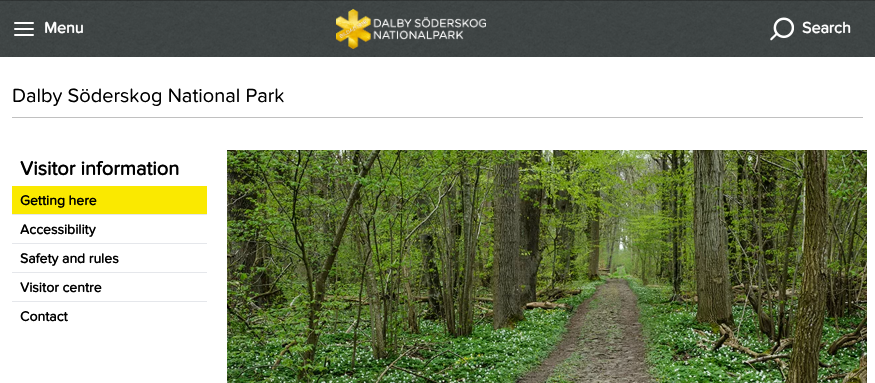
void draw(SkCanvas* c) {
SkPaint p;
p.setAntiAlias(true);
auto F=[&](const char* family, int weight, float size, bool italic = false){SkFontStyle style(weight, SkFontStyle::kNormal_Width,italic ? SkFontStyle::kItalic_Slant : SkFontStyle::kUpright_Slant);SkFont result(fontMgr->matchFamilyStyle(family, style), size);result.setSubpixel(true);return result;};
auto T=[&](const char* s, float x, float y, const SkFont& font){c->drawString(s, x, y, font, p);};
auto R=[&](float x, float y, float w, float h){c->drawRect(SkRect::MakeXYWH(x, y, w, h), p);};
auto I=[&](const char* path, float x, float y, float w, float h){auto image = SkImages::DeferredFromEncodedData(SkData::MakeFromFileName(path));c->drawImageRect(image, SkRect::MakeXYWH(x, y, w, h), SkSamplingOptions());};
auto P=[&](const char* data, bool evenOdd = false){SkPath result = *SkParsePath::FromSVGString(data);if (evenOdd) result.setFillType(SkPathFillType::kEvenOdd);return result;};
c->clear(0xffffffff);
I("1.png",0,0,875,57);
p.setColor(0x40000000);
R(0,0,875,1);
p.setStroke(true);
p.setStrokeWidth(2);
p.setStrokeCap(SkPaint::kRound_Cap);
p.setStrokeJoin(SkPaint::kRound_Join);
p.setColor(0xffffffff);
c->drawPath(P("M15 29h18m-18-6h18m-18 12h18"),p);
auto f1 = F("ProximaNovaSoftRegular",700,16);
p.setStroke(false);
T("Menu",44,33,f1);
I("2.png",336,9,150,40);
I("3.png",770,17,24,24);
T("Search",802,33,f1);
p.setColor(0xffc0c0c0);
R(12,117,851,1);
auto f2 = F("ProximaNovaSoftRegular",400,20);
p.setColor(0xff000000);
T("Dalby Söderskog National Park",12,102,f2);
auto f3 = F("ProximaNovaSoftRegular",700,20);
T("Visitor information",20,175,f3);
p.setColor(0xfffae900);
R(12,186,195,28);
auto f4 = F("ProximaNovaSoftRegular",700,14);
p.setColor(0xff000000);
T("Getting here",20,205,f4);
p.setColor(0xffe5e7eb);
R(12,214,195,1);
p.setColor(0xff000000);
T("Accessibility",20,234,f4);
p.setColor(0xffe5e7eb);
R(12,243,195,1);
p.setColor(0xff000000);
T("Safety and rules",20,263,f4);
p.setColor(0xffe5e7eb);
R(12,272,195,1);
p.setColor(0xff000000);
T("Visitor centre",20,292,f4);
p.setColor(0xffe5e7eb);
R(12,301,195,1);
p.setColor(0xff000000);
T("Contact",20,321,f4);
I("4.png",227,150,640,233);
}
